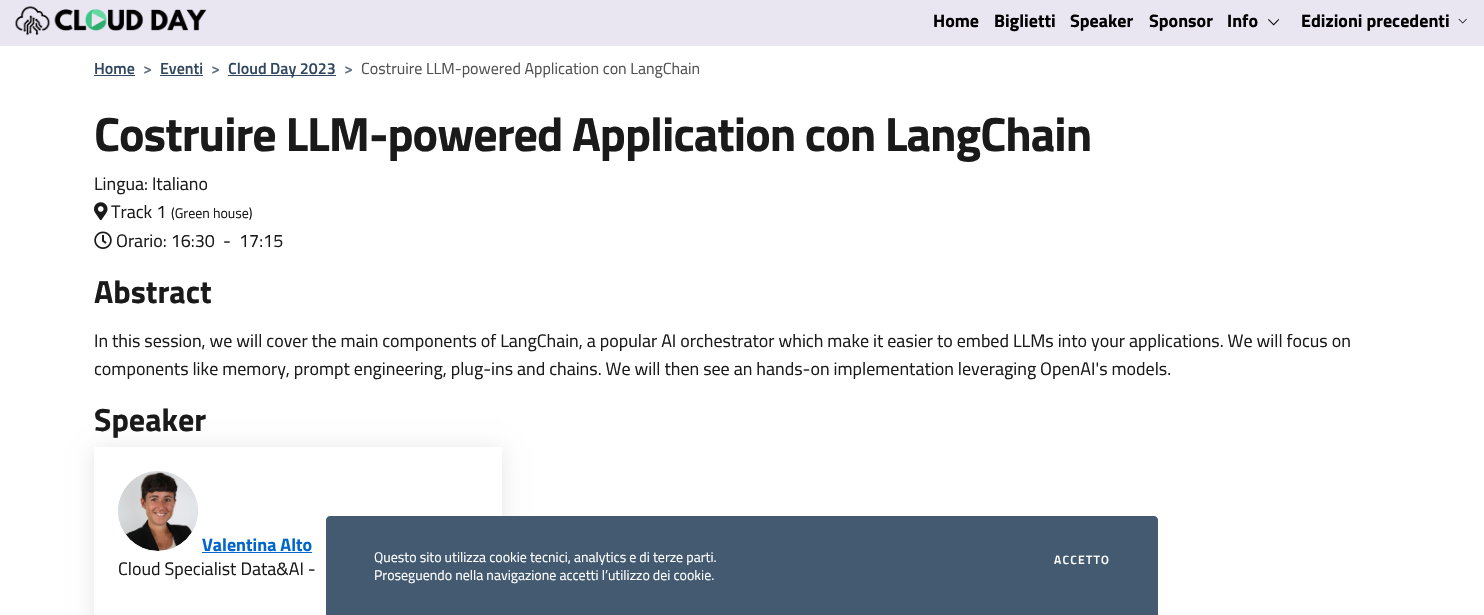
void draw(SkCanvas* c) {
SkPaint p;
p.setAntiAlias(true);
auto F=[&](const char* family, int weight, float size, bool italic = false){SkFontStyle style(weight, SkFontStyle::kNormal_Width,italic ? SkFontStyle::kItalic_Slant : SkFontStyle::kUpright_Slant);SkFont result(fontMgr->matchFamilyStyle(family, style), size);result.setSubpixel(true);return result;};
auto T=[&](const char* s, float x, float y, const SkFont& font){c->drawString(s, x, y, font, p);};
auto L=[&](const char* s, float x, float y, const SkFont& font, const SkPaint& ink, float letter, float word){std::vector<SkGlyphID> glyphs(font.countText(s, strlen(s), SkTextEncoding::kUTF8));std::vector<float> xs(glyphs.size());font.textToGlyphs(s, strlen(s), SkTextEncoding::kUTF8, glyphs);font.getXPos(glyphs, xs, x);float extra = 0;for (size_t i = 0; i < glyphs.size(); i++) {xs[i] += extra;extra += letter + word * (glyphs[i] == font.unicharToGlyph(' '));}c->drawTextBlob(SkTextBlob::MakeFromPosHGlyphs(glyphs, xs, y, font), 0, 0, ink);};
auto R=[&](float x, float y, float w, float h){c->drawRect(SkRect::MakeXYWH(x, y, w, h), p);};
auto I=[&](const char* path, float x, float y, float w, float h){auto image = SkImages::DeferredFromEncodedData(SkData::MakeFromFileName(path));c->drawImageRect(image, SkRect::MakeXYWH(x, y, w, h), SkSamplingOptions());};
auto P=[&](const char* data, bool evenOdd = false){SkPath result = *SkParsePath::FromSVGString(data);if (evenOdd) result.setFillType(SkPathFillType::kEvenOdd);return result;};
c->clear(0xffffffff);
p.setColor(0xffe9e6f2);
R(0,0,1484,46);
I("1.png",15,6,192,30);
auto f1 = F("Titillium Web",700,18);
p.setColor(0xff000000);
T("Home",933,27,f1);
T("Biglietti",994,27,f1);
T("Speaker",1070,27,f1);
T("Sponsor",1149,27,f1);
T("Info",1227,27,f1);
I("2.png",1268,19,12,7);
T("Edizioni precedenti",1301,27,f1);
I("3.png",1458,18,9,6);
auto f2 = F("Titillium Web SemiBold",600,16);
p.setColor(0xff30475f);
T("Home",94,74,f2);
R(94,75,41,1);
p.setColor(0xff5d7083);
T(">",143,74,f2);
p.setColor(0xff30475f);
T("Eventi",160,74,f2);
R(160,75,43,1);
p.setColor(0xff5d7083);
T(">",211,74,f2);
p.setColor(0xff30475f);
R(228,75,108,1);
T("Cloud Day 2023",228,74,f2);
p.setColor(0xff5d7083);
T(">",344,74,f2);
auto f3 = F("Titillium Web",400,16);
p.setColor(0xff525252);
T("Costruire LLM-powered Application con LangChain",361,74,f3);
auto f4 = F("Titillium Web",700,48);
p.setColor(0xff1a1a1a);
L("Costruire LLM-powered Application con LangChain",94,151,f4,p,-1,0);
auto f5 = F("Titillium Web",400,18);
T("Lingua: Italiano",94,190,f5);
I("4.png",94,202,14,19);
T("Track 1",111,218,f5);
auto f6 = F("Titillium Web",400,14);
T("(Green house)",171,218,f6);
I("5.png",94,231,18,18);
T("Orario: 16:30",116,247,f5);
T("-",223,247,f5);
T("17:15",239,247,f5);
auto f7 = F("Titillium Web",700,32);
T("Abstract",94,303,f7);
T("In this session, we will cover the main components of LangChain, a popular AI orchestrator which make it easier to embed LLMs into your applications. We will focus on",94,347,f5);
T("components like memory, prompt engineering, plug-ins and chains. We will then see an hands-on implementation leveraging OpenAI's models.",94,375,f5);
T("Speaker",94,431,f7);
c->save();
c->clipPath(P("M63 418h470v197h-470zm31 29h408v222h-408z",true),true);
p.setColor(0x1a000000);
p.setMaskFilter(SkMaskFilter::MakeBlur(kNormal_SkBlurStyle, 10));
c->drawRect(SkRect::MakeXYWH(94,449,408,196),p);
p.setMaskFilter(nullptr);
c->restore();
p.setColor(0xffd8d9da);
c->drawCircle(158,511,40,p);
I("6.png",118,472,80,79);
p.setColor(0xff0066cc);
T("Valentina Alto",202,551,f1);
R(202,552,110,1);
p.setColor(0xff1a1a1a);
T("Cloud Specialist Data&AI -",118,575,f5);
p.setColor(0xff435a70);
c->drawPath(P("M330 516h824c2 0 4 2 4 4v95h-832v-95c0-2 2-4 4-4z"),p);
p.setColor(0xffffffff);
T("Questo sito utilizza cookie tecnici, analytics e di terze parti.",374,562,f6);
T("Proseguendo nella navigazione accetti l’utilizzo dei cookie.",374,580,f6);
auto f8 = F("Titillium Web SemiBold",600,12);
L("ACCETTO",1054,564,f8,p,1.25,0);
}
